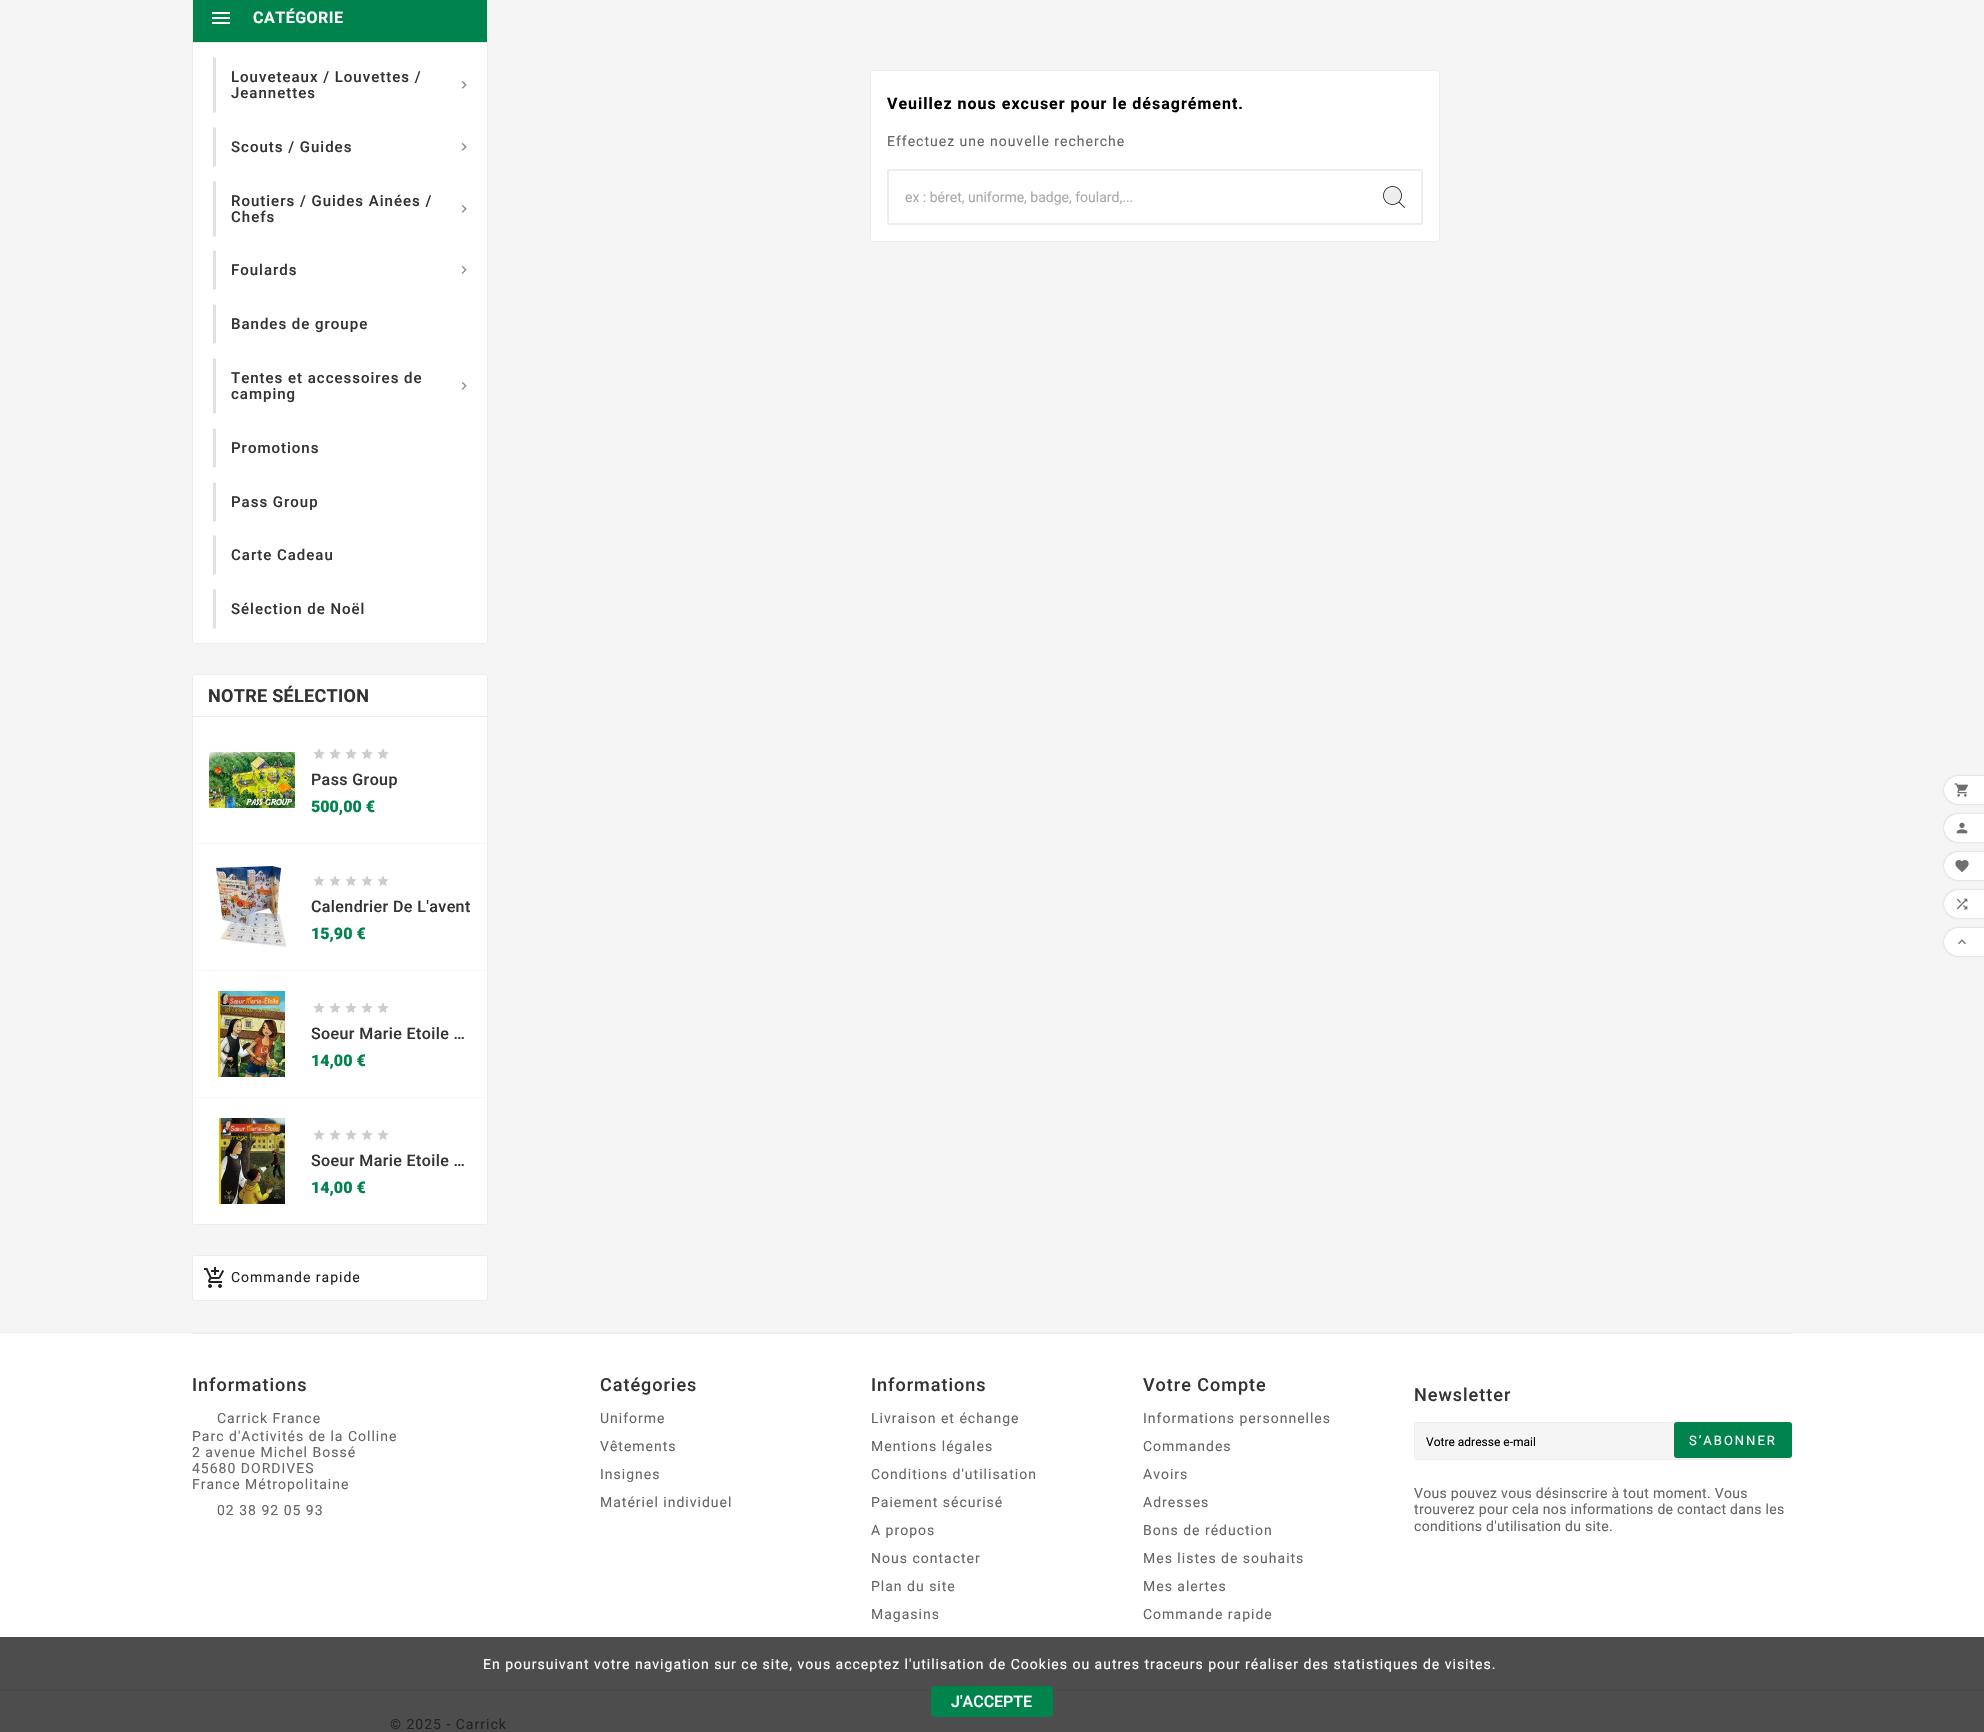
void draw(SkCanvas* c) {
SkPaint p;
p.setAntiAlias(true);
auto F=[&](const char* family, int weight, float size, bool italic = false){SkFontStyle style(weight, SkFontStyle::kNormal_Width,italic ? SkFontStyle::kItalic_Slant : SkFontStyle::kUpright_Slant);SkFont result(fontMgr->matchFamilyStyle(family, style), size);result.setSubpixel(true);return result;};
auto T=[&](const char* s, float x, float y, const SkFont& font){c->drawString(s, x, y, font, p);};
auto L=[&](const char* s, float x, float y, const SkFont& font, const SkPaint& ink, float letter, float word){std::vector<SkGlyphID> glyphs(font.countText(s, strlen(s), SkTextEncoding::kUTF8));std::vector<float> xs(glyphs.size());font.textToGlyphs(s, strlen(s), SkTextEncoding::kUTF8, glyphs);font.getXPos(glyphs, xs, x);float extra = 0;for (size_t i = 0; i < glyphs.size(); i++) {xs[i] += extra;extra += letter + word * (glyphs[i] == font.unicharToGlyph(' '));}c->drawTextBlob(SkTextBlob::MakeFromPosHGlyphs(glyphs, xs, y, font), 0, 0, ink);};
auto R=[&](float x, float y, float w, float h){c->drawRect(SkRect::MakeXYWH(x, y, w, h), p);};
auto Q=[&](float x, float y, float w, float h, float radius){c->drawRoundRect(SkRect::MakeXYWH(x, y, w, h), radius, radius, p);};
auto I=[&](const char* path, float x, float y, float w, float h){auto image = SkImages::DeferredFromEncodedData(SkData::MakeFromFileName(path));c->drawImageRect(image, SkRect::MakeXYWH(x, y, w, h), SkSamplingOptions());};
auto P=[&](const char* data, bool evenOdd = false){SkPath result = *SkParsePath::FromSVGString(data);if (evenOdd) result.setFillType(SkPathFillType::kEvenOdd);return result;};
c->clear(0xfff5f5f5);
p.setColor(0xffffffff);
Q(192,-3,296,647,3);
p.setStroke(true);
p.setStrokeWidth(1);
p.setColor(0x12000000);
c->drawRoundRect(SkRect::MakeXYWH(192.5,-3.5,295,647),2.5,2.5,p);
p.setStroke(false);
p.setColor(0xff00834d);
R(193,0,294,42);
p.setColor(0xffe5e5e5);
R(193,42,294,1);
I("1.png",212,12,18,12);
auto f1 = F("Roboto",700,16);
p.setColor(0xffffffff);
L("CATÉGORIE",253,23,f1,p,.5,0);
p.setColor(0xffe1e1e1);
c->drawPath(P("M213 113v-56l3 1v54z"),p);
auto f2 = F("Roboto",500,15);
p.setColor(0xff333333);
L("Louveteaux / Louvettes /",231,82,f2,p,1,0);
L("Jeannettes",231,98,f2,p,1,0);
I("2.png",461,81,6,8);
p.setColor(0xffe1e1e1);
c->drawPath(P("M213 167v-40l3 1v38z"),p);
p.setColor(0xff333333);
L("Scouts / Guides",231,152,f2,p,1,0);
I("2.png",461,143,6,8);
p.setColor(0xffe1e1e1);
c->drawPath(P("M213 237v-56l3 1v54z"),p);
p.setColor(0xff333333);
L("Routiers / Guides Ainées /",231,206,f2,p,1,0);
L("Chefs",231,222,f2,p,1,0);
I("2.png",461,205,6,8);
p.setColor(0xffe1e1e1);
c->drawPath(P("M213 290v-40l3 1v38z"),p);
p.setColor(0xff333333);
L("Foulards",231,275,f2,p,1,0);
I("2.png",461,266,6,8);
p.setColor(0xffe1e1e1);
c->drawPath(P("M213 344v-40l3 1v38z"),p);
p.setColor(0xff333333);
L("Bandes de groupe",231,329,f2,p,1,0);
p.setColor(0xffe1e1e1);
c->drawPath(P("M213 414v-56l3 1v54z"),p);
p.setColor(0xff333333);
L("Tentes et accessoires de",231,383,f2,p,1,0);
L("camping",231,399,f2,p,1,0);
I("2.png",461,382,6,8);
p.setColor(0xffe1e1e1);
c->drawPath(P("M213 468v-40l3 1v38z"),p);
p.setColor(0xff333333);
L("Promotions",231,453,f2,p,1,0);
p.setColor(0xffe1e1e1);
c->drawPath(P("M213 522v-40l3 1v38z"),p);
p.setColor(0xff333333);
L("Pass Group",231,507,f2,p,1,0);
p.setColor(0xffe1e1e1);
c->drawPath(P("M213 575v-40l3 1v38z"),p);
p.setColor(0xff333333);
L("Carte Cadeau",231,560,f2,p,1,0);
p.setColor(0xffe1e1e1);
c->drawPath(P("M213 629v-40l3 1v38z"),p);
p.setColor(0xff333333);
L("Sélection de Noël",231,614,f2,p,1,0);
p.setColor(0xffffffff);
Q(192,674,296,551,3);
p.setStroke(true);
p.setColor(0x12000000);
c->drawRoundRect(SkRect::MakeXYWH(192.5,674.5,295,550),2.5,2.5,p);
auto f3 = F("Roboto",700,18);
p.setStroke(false);
p.setColor(0xff333333);
L("NOTRE SÉLECTION",208,702,f3,p,.3,0);
p.setColor(0xffededed);
R(193,716,294,1);
p.setColor(0xfff7f7f7);
R(195,843,291,1);
I("3.png",209,745,86,64);
I("4.png",313,748,12,11);
I("4.png",329,748,12,11);
I("4.png",345,748,12,11);
I("4.png",361,748,12,11);
I("4.png",377,748,12,11);
auto f4 = F("Roboto",500,16);
p.setColor(0xff333333);
L("Pass Group",311,785,f4,p,.4,0);
auto f5 = F("Roboto",900,16);
p.setColor(0xff00834d);
T("500,00 €",311,812,f5);
p.setColor(0xfff7f7f7);
R(195,970,291,1);
I("5.png",209,864,78,85);
I("4.png",313,875,12,11);
I("4.png",329,875,12,11);
I("4.png",345,875,12,11);
I("4.png",361,875,12,11);
I("4.png",377,875,12,11);
p.setColor(0xff333333);
L("Calendrier De L'avent",311,912,f4,p,.4,0);
p.setColor(0xff00834d);
T("15,90 €",311,939,f5);
p.setColor(0xfff7f7f7);
R(195,1097,291,1);
I("6.png",217,991,72,86);
I("4.png",313,1002,12,11);
I("4.png",329,1002,12,11);
I("4.png",345,1002,12,11);
I("4.png",361,1002,12,11);
I("4.png",377,1002,12,11);
p.setColor(0xff333333);
L("Soeur Marie Etoile …",311,1039,f4,p,.4,0);
p.setColor(0xff00834d);
T("14,00 €",311,1066,f5);
I("7.png",217,1118,72,86);
I("4.png",313,1129,12,11);
I("4.png",329,1129,12,11);
I("4.png",345,1129,12,11);
I("4.png",361,1129,12,11);
I("4.png",377,1129,12,11);
p.setColor(0xff333333);
L("Soeur Marie Etoile …",311,1166,f4,p,.4,0);
p.setColor(0xff00834d);
T("14,00 €",311,1193,f5);
p.setColor(0xffffffff);
Q(192,1255,296,46,3);
p.setStroke(true);
p.setColor(0x12000000);
c->drawRoundRect(SkRect::MakeXYWH(192.5,1255.5,295,45),2.5,2.5,p);
I("8.png",204,1267,20,21);
auto f6 = F("Roboto",400,14);
p.setStroke(false);
p.setColor(0xff222222);
L("Commande rapide",231,1282,f6,p,1,0);
p.setColor(0xffffffff);
Q(870,70,570,172,3);
p.setStroke(true);
p.setColor(0x12000000);
c->drawRoundRect(SkRect::MakeXYWH(870.5,70.5,569,171),2.5,2.5,p);
auto f7 = F("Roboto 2",700,16);
p.setStroke(false);
p.setColor(0xff000000);
L("Veuillez nous excuser pour le désagrément.",887,109,f7,p,1,0);
p.setColor(0xff666666);
L("Effectuez une nouvelle recherche",887,146,f6,p,1,0);
p.setStroke(true);
p.setStrokeWidth(2);
p.setColor(0xffededed);
c->drawRoundRect(SkRect::MakeXYWH(888,170,534,54),2,2,p);
p.setStroke(false);
p.setColor(0xffffffff);
c->drawPath(P("M890 171h477v52h-477c-.5 0-1-.5-1-1v-50c0-.5 .5-1 1-1z"),p);
p.setColor(0xffaaaaaa);
T("ex : béret, uniforme, badge, foulard,...",905,202,f6);
p.setColor(0xffffffff);
c->drawPath(P("M1367 171h53c.5 0 1 .5 1 1v50c0 .5-.5 1-1 1h-53z"),p);
I("9.png",1383,186,22,22);
R(0,1333,1984,304);
p.setColor(0xff4d4d4d);
R(0,1637,1984,95);
p.setColor(0xffededed);
R(0,1332,1984,1);
p.setColor(0x33000000);
p.setMaskFilter(SkMaskFilter::MakeBlur(kNormal_SkBlurStyle, 1));
c->drawRoundRect(SkRect::MakeXYWH(1944,776,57,28),14,14,p);
p.setMaskFilter(nullptr);
p.setColor(0xffffffff);
c->drawPath(P("M1958 776h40v28h-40c-7.5 0-14-6.5-14-14c0-7.5 6.5-14 14-14z"),p);
I("10.png",1954,783,14,14);
p.setColor(0x33000000);
p.setMaskFilter(SkMaskFilter::MakeBlur(kNormal_SkBlurStyle, 1));
c->drawRoundRect(SkRect::MakeXYWH(1944,814,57,28),14,14,p);
p.setMaskFilter(nullptr);
p.setColor(0xffffffff);
c->drawPath(P("M1958 814h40v28h-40c-7.5 0-14-6.5-14-14c0-7.5 6.5-14 14-14z"),p);
I("11.png",1956,822,12,12);
p.setColor(0x33000000);
p.setMaskFilter(SkMaskFilter::MakeBlur(kNormal_SkBlurStyle, 1));
c->drawRoundRect(SkRect::MakeXYWH(1944,852,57,28),14,14,p);
p.setMaskFilter(nullptr);
p.setColor(0xffffffff);
c->drawPath(P("M1958 852h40v28h-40c-7.5 0-14-6.5-14-14c0-7.5 6.5-14 14-14z"),p);
I("12.png",1955,860,14,12);
p.setColor(0x33000000);
p.setMaskFilter(SkMaskFilter::MakeBlur(kNormal_SkBlurStyle, 1));
c->drawRoundRect(SkRect::MakeXYWH(1944,890,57,28),14,14,p);
p.setMaskFilter(nullptr);
p.setColor(0xffffffff);
c->drawPath(P("M1958 890h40v28h-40c-7.5 0-14-6.5-14-14c0-7.5 6.5-14 14-14z"),p);
I("13.png",1956,898,12,12);
p.setColor(0x33000000);
p.setMaskFilter(SkMaskFilter::MakeBlur(kNormal_SkBlurStyle, 1));
c->drawRoundRect(SkRect::MakeXYWH(1944,928,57,28),14,14,p);
p.setMaskFilter(nullptr);
p.setColor(0xffffffff);
c->drawPath(P("M1958 928h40v28h-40c-7.5 0-14-6.5-14-14c0-7.5 6.5-14 14-14z"),p);
I("14.png",1958,939,8,6);
p.setColor(0xffededed);
R(192,1333,1600,1);
auto f8 = F("Roboto",500,18);
p.setColor(0xff333333);
L("Informations",192,1391,f8,p,1,0);
p.setColor(0xff666666);
L("Carrick France",217,1423,f6,p,1,0);
L("Parc d'Activités de la Colline",192,1441,f6,p,1,0);
L("2 avenue Michel Bossé",192,1457,f6,p,1,0);
L("45680 DORDIVES",192,1473,f6,p,1,0);
L("France Métropolitaine",192,1489,f6,p,1,0);
L("02 38 92 05 93",217,1515,f6,p,1,0);
p.setColor(0xff333333);
L("Catégories",600,1391,f8,p,1,0);
p.setColor(0xff666666);
L("Uniforme",600,1423,f6,p,1,0);
L("Vêtements",600,1451,f6,p,1,0);
L("Insignes",600,1479,f6,p,1,0);
L("Matériel individuel",600,1507,f6,p,1,0);
p.setColor(0xff333333);
L("Informations",871,1391,f8,p,1,0);
p.setColor(0xff666666);
L("Livraison et échange",871,1423,f6,p,1,0);
L("Mentions légales",871,1451,f6,p,1,0);
L("Conditions d'utilisation",871,1479,f6,p,1,0);
L("Paiement sécurisé",871,1507,f6,p,1,0);
L("A propos",871,1535,f6,p,1,0);
L("Nous contacter",871,1563,f6,p,1,0);
L("Plan du site",871,1591,f6,p,1,0);
L("Magasins",871,1619,f6,p,1,0);
p.setColor(0xff333333);
L("Votre Compte",1143,1391,f8,p,1,0);
p.setColor(0xff666666);
L("Informations personnelles",1143,1423,f6,p,1,0);
L("Commandes",1143,1451,f6,p,1,0);
L("Avoirs",1143,1479,f6,p,1,0);
L("Adresses",1143,1507,f6,p,1,0);
L("Bons de réduction",1143,1535,f6,p,1,0);
L("Mes listes de souhaits",1143,1563,f6,p,1,0);
L("Mes alertes",1143,1591,f6,p,1,0);
L("Commande rapide",1143,1619,f6,p,1,0);
p.setColor(0xff333333);
L("Newsletter",1414,1401,f8,p,1,0);
p.setColor(0xfff5f5f5);
c->drawRoundRect(SkRect::MakeXYWH(1414.5,1422.5,377,37),2.5,2.5,p);
p.setStroke(true);
p.setStrokeWidth(1);
p.setColor(0xffeeeeee);
c->drawRoundRect(SkRect::MakeXYWH(1414.5,1422.5,377,37),2.5,2.5,p);
auto f9 = F("Roboto",400,12);
p.setStroke(false);
p.setColor(0xff000000);
T("Votre adresse e-mail",1426,1446,f9);
p.setColor(0xff00834d);
Q(1674,1422,118,36,3);
auto f10 = F("Roboto",400,13);
p.setColor(0xffffffff);
L("S’ABONNER",1689,1445,f10,p,2,0);
p.setColor(0xff666666);
L("Vous pouvez vous désinscrire à tout moment. Vous",1414,1498,f6,p,.3,0);
L("trouverez pour cela nos informations de contact dans les",1414,1514,f6,p,.3,0);
L("conditions d'utilisation du site.",1414,1531,f6,p,.3,0);
p.setColor(0xff474747);
R(0,1690,1984,1);
p.setColor(0xff222222);
L("© 2025 - Carrick",390,1729,f6,p,1,0);
p.setColor(0xffffffff);
L("En poursuivant votre navigation sur ce site, vous acceptez l'utilisation de Cookies ou autres traceurs pour réaliser des statistiques de visites.",483,1669,f6,p,1,0);
p.setColor(0xff00834d);
Q(931,1686,122,31,4);
p.setColor(0xffffffff);
T("J'ACCEPTE",951,1707,f4);
}
